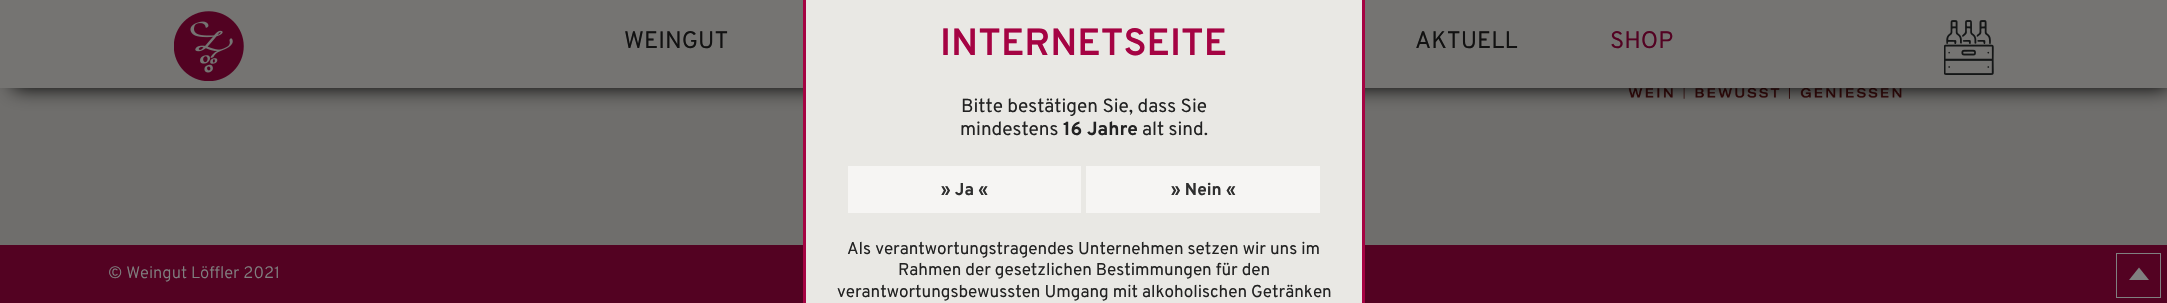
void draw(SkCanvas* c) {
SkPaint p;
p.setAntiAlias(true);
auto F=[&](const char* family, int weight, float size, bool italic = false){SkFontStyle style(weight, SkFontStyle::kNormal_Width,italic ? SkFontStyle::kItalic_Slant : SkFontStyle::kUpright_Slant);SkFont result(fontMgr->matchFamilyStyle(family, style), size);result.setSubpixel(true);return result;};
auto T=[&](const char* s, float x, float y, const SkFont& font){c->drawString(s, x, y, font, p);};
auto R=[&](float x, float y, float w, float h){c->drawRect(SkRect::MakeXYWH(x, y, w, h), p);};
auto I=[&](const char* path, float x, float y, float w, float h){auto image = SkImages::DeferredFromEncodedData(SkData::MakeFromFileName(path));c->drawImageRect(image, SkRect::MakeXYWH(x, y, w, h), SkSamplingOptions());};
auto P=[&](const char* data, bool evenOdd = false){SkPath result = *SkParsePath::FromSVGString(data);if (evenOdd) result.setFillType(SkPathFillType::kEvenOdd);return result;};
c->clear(0xff6f6e6c);
I("3.png",1628,88,274,11);
p.setColor(0xff000000);
p.setMaskFilter(SkMaskFilter::MakeBlur(kNormal_SkBlurStyle, 9.5));
c->drawRect(SkRect::MakeXYWH(13,13,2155,75),p);
p.setMaskFilter(nullptr);
p.setColor(0xff757472);
R(0,0,2167,88);
p.setColor(0xff530222);
R(0,245,2167,58);
p.setColor(0xffe9e8e4);
c->drawRect(SkRect::MakeXYWH(804.5,-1.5,559,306),p);
p.setStroke(true);
p.setStrokeWidth(3);
p.setColor(0xffa50343);
c->drawRect(SkRect::MakeXYWH(804.5,-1.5,559,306),p);
auto f1 = F("Overpass",600,38);
p.setStroke(false);
T("INTERNETSEITE",940,55,f1);
auto f2 = F("Overpass",400,19);
p.setColor(0xff222222);
T("Bitte bestätigen Sie, dass Sie",961,112,f2);
T("mindestens",960,135,f2);
auto f3 = F("Overpass",700,19);
T("16 Jahre",1063,135,f3);
T("alt sind.",1142,135,f2);
p.setColor(0xfff6f5f3);
R(848,166,233,47);
auto f4 = F("Overpass",700,17.1);
p.setColor(0xff2f2f2f);
T("» Ja «",941,195,f4);
p.setColor(0xfff6f5f3);
R(1086,166,234,47);
p.setColor(0xff2f2f2f);
T("» Nein «",1171,195,f4);
auto f5 = F("Overpass",400,17.1);
p.setColor(0xff222222);
T("Als verantwortungstragendes Unternehmen setzen wir uns im",847,254,f5);
T("Rahmen der gesetzlichen Bestimmungen für den",898,275,f5);
T("verantwortungsbewussten Umgang mit alkoholischen Getränken",837,297,f5);
I("1.png",174,11,70,70);
auto f6 = F("Overpass",400,23.75);
p.setColor(0xff111111);
T("WEINGUT",624,48,f6);
T("AKTUELL",1415,48,f6);
p.setColor(0xff530222);
T("SHOP",1610,48,f6);
I("2.png",1944,20,50,55);
auto f7 = F("Overpass",300,16.6);
p.setColor(0xff808080);
T("© Weingut Löffler 2021",108,278,f7);
p.setStroke(true);
p.setStrokeWidth(1);
c->drawRect(SkRect::MakeXYWH(2116.5,253.5,44,44),p);
p.setStroke(false);
c->drawPath(P("M2149 280h-20l10-12.5z"),p);
}
